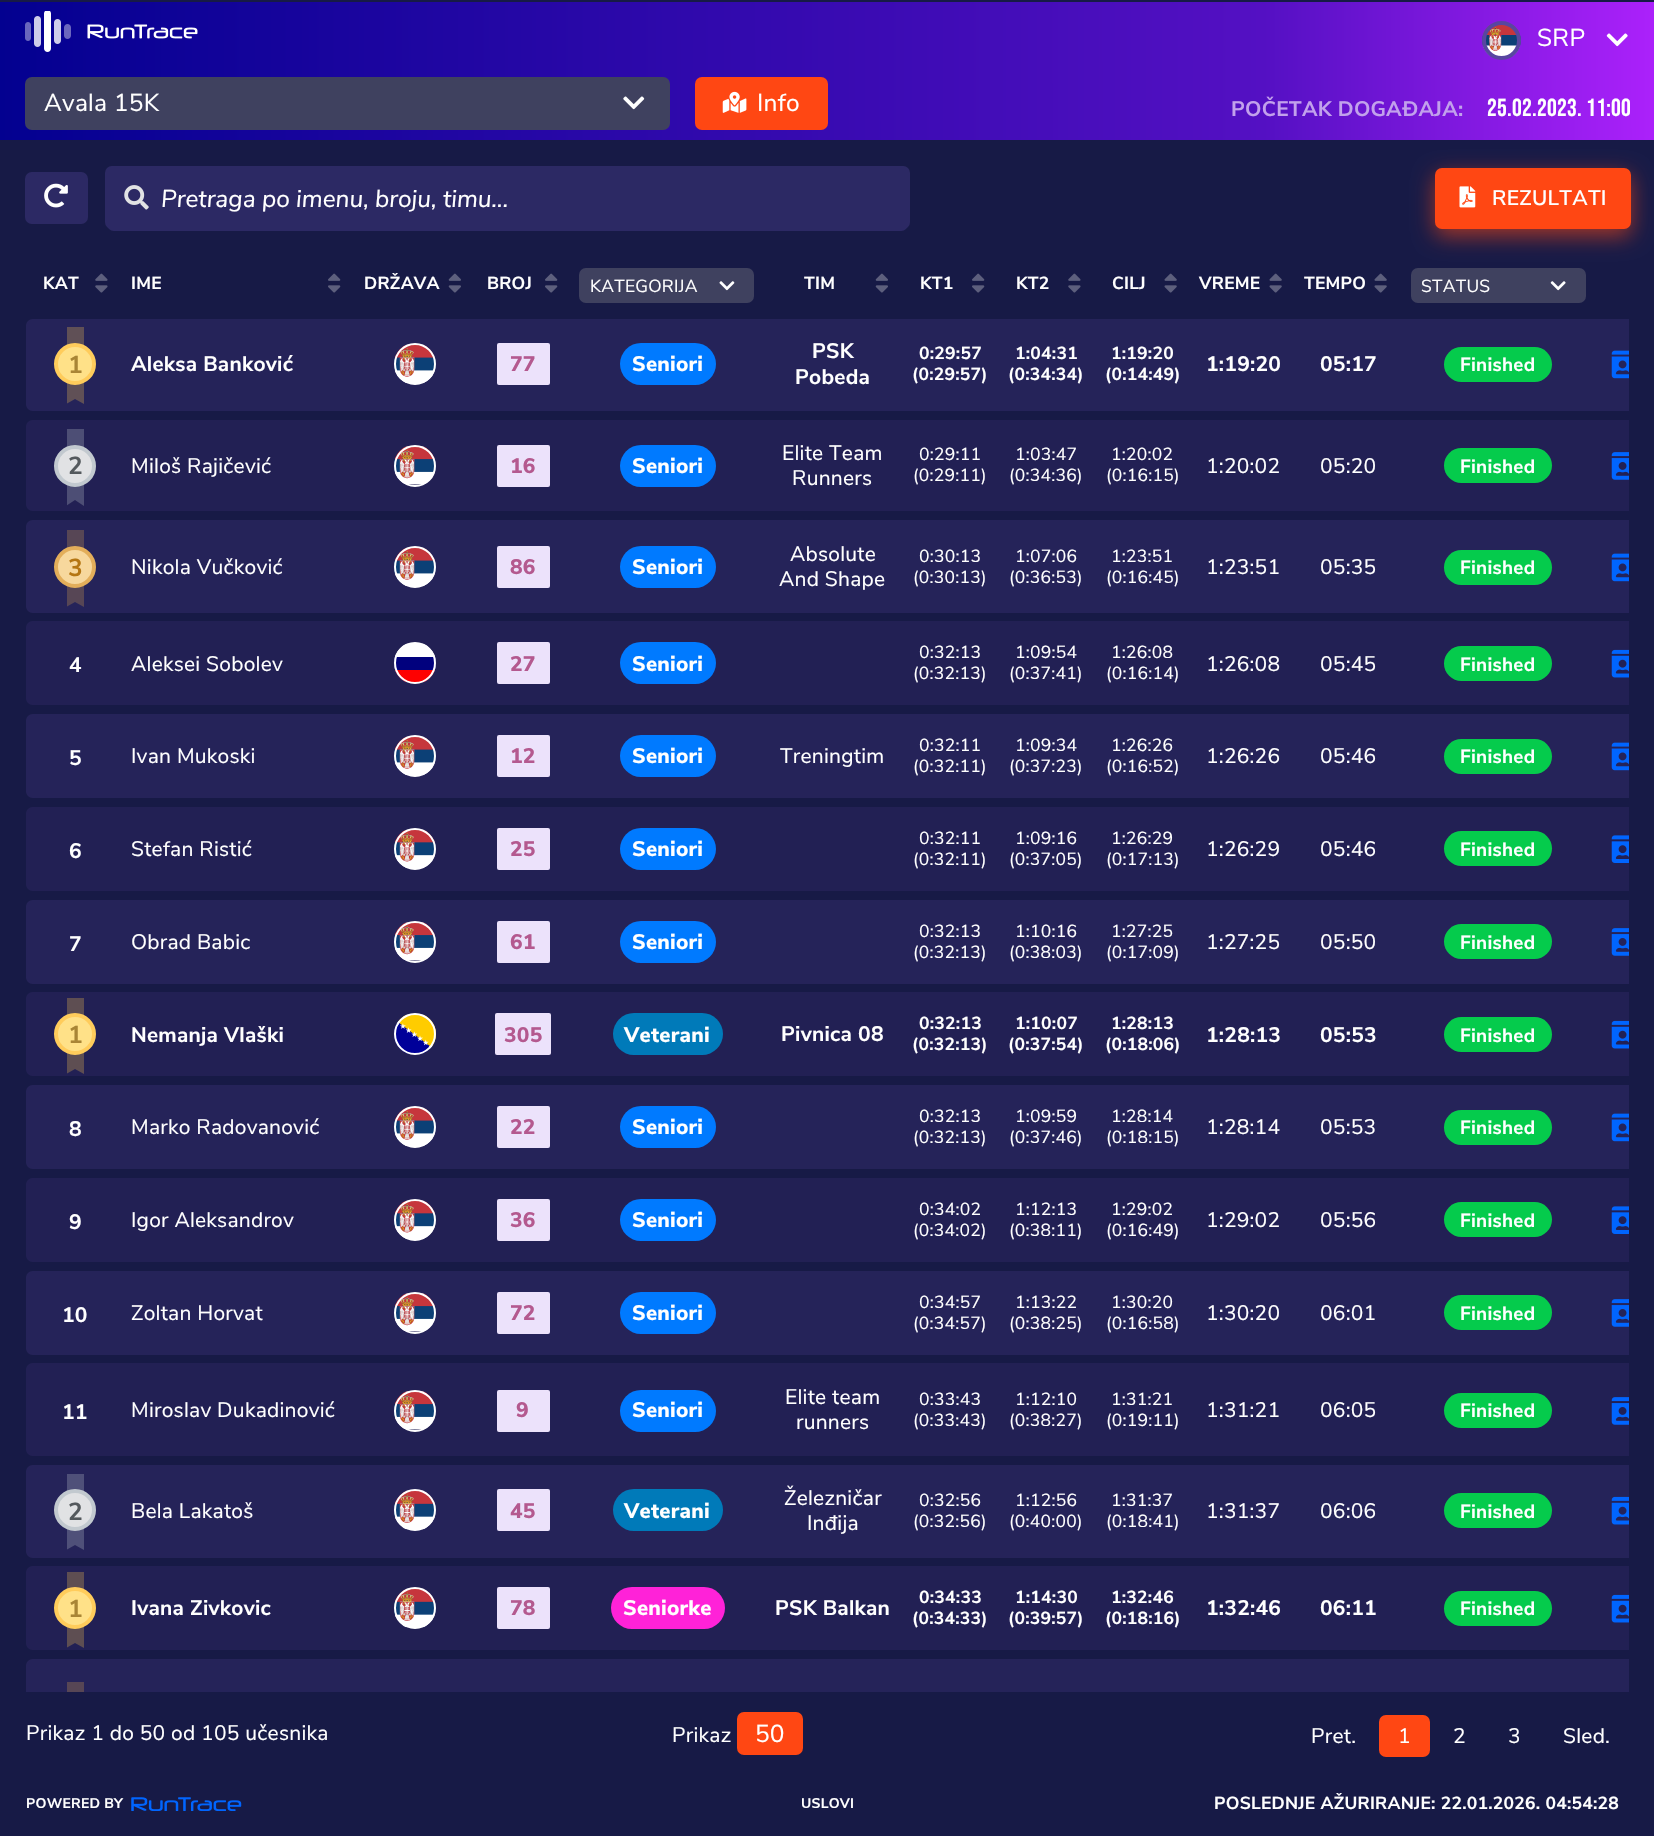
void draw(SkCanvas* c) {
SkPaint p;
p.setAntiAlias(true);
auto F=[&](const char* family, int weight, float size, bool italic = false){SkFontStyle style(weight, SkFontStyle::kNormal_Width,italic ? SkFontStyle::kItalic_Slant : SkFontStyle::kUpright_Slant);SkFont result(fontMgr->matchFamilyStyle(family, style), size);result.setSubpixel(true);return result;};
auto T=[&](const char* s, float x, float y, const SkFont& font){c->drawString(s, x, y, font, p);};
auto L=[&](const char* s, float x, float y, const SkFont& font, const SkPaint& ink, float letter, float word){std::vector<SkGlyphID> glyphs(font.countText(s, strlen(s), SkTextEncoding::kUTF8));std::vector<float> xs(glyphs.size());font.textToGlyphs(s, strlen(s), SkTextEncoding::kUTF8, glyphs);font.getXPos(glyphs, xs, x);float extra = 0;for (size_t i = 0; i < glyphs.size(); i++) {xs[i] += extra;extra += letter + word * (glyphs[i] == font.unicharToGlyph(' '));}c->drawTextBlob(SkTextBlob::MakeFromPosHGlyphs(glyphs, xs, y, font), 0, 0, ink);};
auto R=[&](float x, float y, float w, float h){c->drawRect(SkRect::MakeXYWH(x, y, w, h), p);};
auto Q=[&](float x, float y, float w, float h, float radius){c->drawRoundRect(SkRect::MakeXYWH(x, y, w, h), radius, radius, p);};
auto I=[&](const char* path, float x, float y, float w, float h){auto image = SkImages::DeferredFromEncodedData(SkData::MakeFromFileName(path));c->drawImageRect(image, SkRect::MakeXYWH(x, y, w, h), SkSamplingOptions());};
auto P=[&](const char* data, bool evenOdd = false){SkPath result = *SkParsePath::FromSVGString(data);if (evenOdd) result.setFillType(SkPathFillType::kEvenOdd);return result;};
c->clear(0xff171a46);
{
const SkColor colors[] = {0xff00008e,0xff5410c3,0xffac21fb};
const float stops[] = {0,.77,1};
const SkPoint ends[] = {{-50,88}, {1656,87}};
p.setShader(SkGradientShader::MakeLinear(ends, colors, stops, 3, SkTileMode::kClamp));
p.setAlpha(255);
}
R(0,2,1654,138);
I("1.png",25,11,173,41);
p.setShader(nullptr);
p.setColor(0xff3f415f);
Q(25,77,645,53,7);
auto f1 = F("Nunito Sans",400,24.5);
p.setColor(0xffffffff);
L("Avala 15K",44,111,f1,p,.25,0);
I("2.png",623,96,22,14);
p.setColor(0xffff4713);
Q(695,77,133,53,7);
I("3.png",722,91,25,22);
p.setColor(0xffffffff);
L("Info",757,111,f1,p,.25,0);
I("4.png",1482,25,39,31);
p.setStroke(true);
p.setStrokeWidth(4);
p.setColor(0xff5846a0);
c->drawCircle(1501.5,40.5,17.5,p);
p.setStroke(false);
p.setColor(0xffffffff);
L("SRP",1537,46,f1,p,.25,0);
I("5.png",1606,33,22,14);
auto f2 = F("Nunito Sans",700,21);
p.setColor(0xffc2a1ec);
L("POČETAK DOGAĐAJA:",1231,116,f2,p,.25,0);
auto f3 = F("Bebas Neue",400,24.5);
p.setColor(0xffffffff);
L("25.02.2023. 11:00",1487,116,f3,p,.25,0);
p.setColor(0xff2c2964);
Q(25,172,63,52,7);
I("6.png",44,183,24,25);
Q(105,166,805,63,7);
Q(107,168,801,63,7);
I("7.png",124,185,25,25);
auto f4 = F("Nunito Sans",400,24.5,true);
p.setColor(0xffffffff);
T("Pretraga po imenu, broju, timu...",161,207,f4);
p.setColor(0x99ff4713);
p.setMaskFilter(SkMaskFilter::MakeBlur(kNormal_SkBlurStyle, 10.5));
c->drawRoundRect(SkRect::MakeXYWH(1435,175,196,61),7,7,p);
p.setMaskFilter(nullptr);
p.setColor(0xffff4713);
Q(1435,168,196,61,7);
I("8.png",1459,186,17,22);
auto f5 = F("Nunito Sans",600,21);
p.setColor(0xffffffff);
L("REZULTATI",1492,205,f5,p,.25,0);
auto f6 = F("Nunito Sans",700,17.5);
L("KAT",43,289,f6,p,.25,0);
I("9.png",95,273,13,8);
I("10.png",95,285,13,8);
L("IME",131,289,f6,p,.25,0);
I("11.png",328,273,13,8);
I("12.png",328,285,13,8);
L("DRŽAVA",364,289,f6,p,.25,0);
I("13.png",448,273,13,8);
I("14.png",448,285,13,8);
L("BROJ",487,289,f6,p,.25,0);
I("11.png",545,273,13,8);
I("12.png",545,285,13,8);
p.setColor(0xff3f415f);
Q(579,268,175,35,7);
auto f7 = F("Nunito Sans",400,17.5);
p.setColor(0xffffffff);
L("KATEGORIJA",590,292,f7,p,.25,0);
I("15.png",719,281,16,10);
L("TIM",804,289,f6,p,.25,0);
I("16.png",875,273,13,8);
I("14.png",875,285,13,8);
L("KT1",920,289,f6,p,.25,0);
I("17.png",972,273,13,8);
I("12.png",972,285,13,8);
L("KT2",1016,289,f6,p,.25,0);
I("9.png",1068,273,13,8);
I("10.png",1068,285,13,8);
L("CILJ",1112,289,f6,p,.25,0);
I("18.png",1164,273,13,8);
I("19.png",1164,285,13,8);
L("VREME",1199,289,f6,p,.25,0);
I("18.png",1269,273,13,8);
I("19.png",1269,285,13,8);
L("TEMPO",1304,289,f6,p,.25,0);
I("18.png",1374,273,13,8);
I("19.png",1374,285,13,8);
p.setColor(0xff3f415f);
Q(1411,268,175,35,7);
p.setColor(0xffffffff);
L("STATUS",1421,292,f7,p,.25,0);
I("20.png",1550,281,16,10);
p.setColor(0xff252359);
c->drawPath(P("M33 319h90v92h-90c-4 0-7-3-7-7v-78c0-4 3-7 7-7z"),p);
c->save();
c->clipRect(SkRect::MakeXYWH(67,327,17,77));
p.setColor(0xff605056);
c->drawPath(P("M66 327h18v77l-9-5l-9 5z",true),p);
c->restore();
p.setColor(0xffffe188);
c->drawCircle(75,364,19,p);
p.setStroke(true);
p.setColor(0xffffcc5b);
c->drawCircle(75,364,19,p);
auto f8 = F("Nunito Sans",700,24.5);
p.setStroke(false);
p.setColor(0xffa98535);
L("1",68,373,f8,p,.25,0);
p.setColor(0xff252359);
R(123,319,1506,92);
p.setColor(0xffffffff);
L("Aleksa Banković",131,371,f2,p,.25,0);
I("21.png",394,345,42,38);
p.setStroke(true);
p.setStrokeWidth(2);
c->drawCircle(415,364,20,p);
p.setStroke(false);
p.setColor(0xffece2fb);
Q(497,343,53,42,2);
auto f9 = F("Nunito Sans",800,21);
p.setColor(0xffb4598f);
L("77",510,371,f9,p,.25,0);
p.setColor(0xff007aff);
Q(620,343,96,42,21);
p.setColor(0xffffffff);
L("Seniori",632,371,f9,p,.25,0);
L("PSK",812,358,f2,p,.25,0);
L("Pobeda",795,384,f2,p,.25,0);
L("0:29:57",919,359,f6,p,.25,0);
L("(0:29:57)",912,380,f6,p,.25,0);
L("1:04:31",1015,359,f6,p,.25,0);
L("(0:34:34)",1008,380,f6,p,.25,0);
L("1:19:20",1111,359,f6,p,.25,0);
L("(0:14:49)",1105,380,f6,p,.25,0);
L("1:19:20",1206,371,f2,p,.25,0);
L("05:17",1320,371,f2,p,.25,0);
p.setColor(0xff05cb4c);
Q(1444,347,108,35,17.5);
auto f10 = F("Nunito Sans",700,19);
p.setColor(0xffffffff);
L("Finished",1460,371,f10,p,.25,0);
I("22.png",1611,350,18,29);
p.setColor(0xff222054);
c->drawPath(P("M33 420h90v91h-90c-4 0-7-3-7-7v-77c0-4 3-7 7-7z"),p);
c->save();
c->clipRect(SkRect::MakeXYWH(67,429,17,77));
p.setColor(0xff4d4e75);
c->drawPath(P("M66 429h18v77l-9-6l-9 6z",true),p);
c->restore();
p.setColor(0xffe1e2e4);
c->drawCircle(75,466,19,p);
p.setStroke(true);
p.setStrokeWidth(4);
p.setColor(0xffc2c9cf);
c->drawCircle(75,466,19,p);
p.setStroke(false);
p.setColor(0xff54595d);
L("2",68,474,f8,p,.25,0);
p.setColor(0xff222054);
R(123,420,1506,91);
auto f11 = F("Nunito Sans",400,21);
p.setColor(0xffffffff);
L("Miloš Rajičević",131,473,f11,p,.25,0);
I("23.png",394,446,42,39);
p.setStroke(true);
p.setStrokeWidth(2);
c->drawCircle(415,466,20,p);
p.setStroke(false);
p.setColor(0xffece2fb);
Q(497,445,53,42,2);
p.setColor(0xffb4598f);
L("16",510,473,f9,p,.25,0);
p.setColor(0xff007aff);
Q(620,445,96,42,21);
p.setColor(0xffffffff);
L("Seniori",632,473,f9,p,.25,0);
L("Elite Team",782,460,f11,p,.25,0);
L("Runners",792,485,f11,p,.25,0);
L("0:29:11",919,460,f7,p,.25,0);
L("(0:29:11)",913,481,f7,p,.25,0);
L("1:03:47",1015,460,f7,p,.25,0);
L("(0:34:36)",1009,481,f7,p,.25,0);
L("1:20:02",1111,460,f7,p,.25,0);
L("(0:16:15)",1106,481,f7,p,.25,0);
L("1:20:02",1206,473,f11,p,.25,0);
L("05:20",1320,473,f11,p,.25,0);
p.setColor(0xff05cb4c);
Q(1444,448,108,35,17.5);
p.setColor(0xffffffff);
L("Finished",1460,473,f10,p,.25,0);
I("24.png",1611,452,18,28);
p.setColor(0xff252359);
c->drawPath(P("M33 520h90v93h-90c-4 0-7-3-7-7v-79c0-4 3-7 7-7z"),p);
c->save();
c->clipRect(SkRect::MakeXYWH(67,530,17,77));
p.setColor(0xff574655);
c->drawPath(P("M66 530h18v77l-9-5l-9 5z",true),p);
c->restore();
p.setColor(0xfff7d89d);
c->drawCircle(75,567,19,p);
p.setStroke(true);
p.setStrokeWidth(4);
p.setColor(0xffe3ae5a);
c->drawCircle(75,567,19,p);
p.setStroke(false);
p.setColor(0xffb57612);
L("3",68,576,f8,p,.25,0);
p.setColor(0xff252359);
R(123,520,1506,93);
p.setColor(0xffffffff);
L("Nikola Vučković",131,574,f11,p,.25,0);
I("21.png",394,548,42,38);
p.setStroke(true);
p.setStrokeWidth(2);
c->drawCircle(415,567,20,p);
p.setStroke(false);
p.setColor(0xffece2fb);
Q(497,546,53,42,2);
p.setColor(0xffb4598f);
L("86",510,574,f9,p,.25,0);
p.setColor(0xff007aff);
Q(620,546,96,42,21);
p.setColor(0xffffffff);
L("Seniori",632,574,f9,p,.25,0);
L("Absolute",790,561,f11,p,.25,0);
L("And Shape",779,586,f11,p,.25,0);
L("0:30:13",919,562,f7,p,.25,0);
L("(0:30:13)",913,583,f7,p,.25,0);
L("1:07:06",1015,562,f7,p,.25,0);
L("(0:36:53)",1009,583,f7,p,.25,0);
L("1:23:51",1111,562,f7,p,.25,0);
L("(0:16:45)",1106,583,f7,p,.25,0);
L("1:23:51",1206,574,f11,p,.25,0);
L("05:35",1320,574,f11,p,.25,0);
p.setColor(0xff05cb4c);
Q(1444,550,108,35,17.5);
p.setColor(0xffffffff);
L("Finished",1460,574,f10,p,.25,0);
I("22.png",1611,553,18,29);
p.setColor(0xff222054);
c->drawPath(P("M33 621h90v84h-90c-4 0-7-3-7-7v-70c0-4 3-7 7-7z"),p);
p.setColor(0xffffffff);
L("4",69,672,f2,p,.25,0);
p.setColor(0xff222054);
R(123,621,1506,84);
p.setColor(0xffffffff);
L("Aleksei Sobolev",131,671,f11,p,.25,0);
c->save();
c->clipPath(P("M415 642c11.5 0 21 9.5 21 21c0 11.5-9.5 21-21 21c-11.5 0-21-9.5-21-21c0-11.5 9.5-21 21-21z"),true);
R(394,644,42,38);
p.setColor(0xff01017e);
R(394,657,42,25);
p.setColor(0xfffe0101);
R(395,670,40,12);
c->restore();
p.setStroke(true);
p.setColor(0xffffffff);
c->drawCircle(415,663,20,p);
p.setStroke(false);
p.setColor(0xffece2fb);
Q(497,642,53,42,2);
p.setColor(0xffb4598f);
L("27",510,671,f9,p,.25,0);
p.setColor(0xff007aff);
Q(620,642,96,42,21);
p.setColor(0xffffffff);
L("Seniori",632,671,f9,p,.25,0);
L("0:32:13",919,658,f7,p,.25,0);
L("(0:32:13)",913,679,f7,p,.25,0);
L("1:09:54",1015,658,f7,p,.25,0);
L("(0:37:41)",1009,679,f7,p,.25,0);
L("1:26:08",1111,658,f7,p,.25,0);
L("(0:16:14)",1106,679,f7,p,.25,0);
L("1:26:08",1206,671,f11,p,.25,0);
L("05:45",1320,671,f11,p,.25,0);
p.setColor(0xff05cb4c);
Q(1444,646,108,35,17.5);
p.setColor(0xffffffff);
L("Finished",1460,671,f10,p,.25,0);
I("25.png",1611,649,18,29);
p.setColor(0xff252359);
c->drawPath(P("M33 714h90v84h-90c-4 0-7-3-7-7v-70c0-4 3-7 7-7z"),p);
p.setColor(0xffffffff);
L("5",69,765,f2,p,.25,0);
p.setColor(0xff252359);
R(123,714,1506,84);
p.setColor(0xffffffff);
L("Ivan Mukoski",131,763,f11,p,.25,0);
I("26.png",394,737,42,38);
p.setStroke(true);
c->drawCircle(415,756,20,p);
p.setStroke(false);
p.setColor(0xffece2fb);
Q(497,735,53,42,2);
p.setColor(0xffb4598f);
L("12",510,763,f9,p,.25,0);
p.setColor(0xff007aff);
Q(620,735,96,42,21);
p.setColor(0xffffffff);
L("Seniori",632,763,f9,p,.25,0);
L("Treningtim",780,763,f11,p,.25,0);
L("0:32:11",919,751,f7,p,.25,0);
L("(0:32:11)",913,772,f7,p,.25,0);
L("1:09:34",1015,751,f7,p,.25,0);
L("(0:37:23)",1009,772,f7,p,.25,0);
L("1:26:26",1111,751,f7,p,.25,0);
L("(0:16:52)",1106,772,f7,p,.25,0);
L("1:26:26",1206,763,f11,p,.25,0);
L("05:46",1320,763,f11,p,.25,0);
p.setColor(0xff05cb4c);
Q(1444,739,108,35,17.5);
p.setColor(0xffffffff);
L("Finished",1460,763,f10,p,.25,0);
I("22.png",1611,742,18,29);
p.setColor(0xff222054);
c->drawPath(P("M33 807h90v84h-90c-4 0-7-3-7-7v-70c0-4 3-7 7-7z"),p);
p.setColor(0xffffffff);
L("6",69,858,f2,p,.25,0);
p.setColor(0xff222054);
R(123,807,1506,84);
p.setColor(0xffffffff);
L("Stefan Ristić",131,856,f11,p,.25,0);
I("27.png",394,830,42,38);
p.setStroke(true);
c->drawCircle(415,849,20,p);
p.setStroke(false);
p.setColor(0xffece2fb);
Q(497,828,53,42,2);
p.setColor(0xffb4598f);
L("25",510,856,f9,p,.25,0);
p.setColor(0xff007aff);
Q(620,828,96,42,21);
p.setColor(0xffffffff);
L("Seniori",632,856,f9,p,.25,0);
L("0:32:11",919,844,f7,p,.25,0);
L("(0:32:11)",913,865,f7,p,.25,0);
L("1:09:16",1015,844,f7,p,.25,0);
L("(0:37:05)",1009,865,f7,p,.25,0);
L("1:26:29",1111,844,f7,p,.25,0);
L("(0:17:13)",1106,865,f7,p,.25,0);
L("1:26:29",1206,856,f11,p,.25,0);
L("05:46",1320,856,f11,p,.25,0);
p.setColor(0xff05cb4c);
Q(1444,831,108,35,17.5);
p.setColor(0xffffffff);
L("Finished",1460,856,f10,p,.25,0);
I("28.png",1611,835,18,28);
p.setColor(0xff252359);
c->drawPath(P("M33 900h90v84h-90c-4 0-7-3-7-7v-70c0-4 3-7 7-7z"),p);
p.setColor(0xffffffff);
L("7",69,951,f2,p,.25,0);
p.setColor(0xff252359);
R(123,900,1506,84);
p.setColor(0xffffffff);
L("Obrad Babic",131,949,f11,p,.25,0);
I("29.png",394,922,42,39);
p.setStroke(true);
c->drawCircle(415,942,20,p);
p.setStroke(false);
p.setColor(0xffece2fb);
Q(497,921,53,42,2);
p.setColor(0xffb4598f);
L("61",510,949,f9,p,.25,0);
p.setColor(0xff007aff);
Q(620,921,96,42,21);
p.setColor(0xffffffff);
L("Seniori",632,949,f9,p,.25,0);
L("0:32:13",919,937,f7,p,.25,0);
L("(0:32:13)",913,958,f7,p,.25,0);
L("1:10:16",1015,937,f7,p,.25,0);
L("(0:38:03)",1009,958,f7,p,.25,0);
L("1:27:25",1111,937,f7,p,.25,0);
L("(0:17:09)",1106,958,f7,p,.25,0);
L("1:27:25",1206,949,f11,p,.25,0);
L("05:50",1320,949,f11,p,.25,0);
p.setColor(0xff05cb4c);
Q(1444,924,108,35,17.5);
p.setColor(0xffffffff);
L("Finished",1460,949,f10,p,.25,0);
I("30.png",1611,928,18,28);
p.setColor(0xff222054);
c->drawPath(P("M33 992h90v84h-90c-4 0-7-3-7-7v-70c0-4 3-7 7-7z"),p);
c->save();
c->clipRect(SkRect::MakeXYWH(67,998,17,77));
p.setColor(0xff5e4e52);
c->drawPath(P("M66 998h18v76l-9-5l-9 5z",true),p);
c->restore();
p.setColor(0xffffe188);
c->drawCircle(75,1034,19,p);
p.setStroke(true);
p.setStrokeWidth(4);
p.setColor(0xffffcc5b);
c->drawCircle(75,1034,19,p);
p.setStroke(false);
p.setColor(0xffa98535);
L("1",68,1043,f8,p,.25,0);
p.setColor(0xff222054);
R(123,992,1506,84);
p.setColor(0xffffffff);
L("Nemanja Vlaški",131,1042,f2,p,.25,0);
I("31.png",394,1015,42,39);
p.setStroke(true);
p.setStrokeWidth(2);
c->drawCircle(415,1034,20,p);
p.setStroke(false);
p.setColor(0xffece2fb);
Q(495,1013,56,42,2);
p.setColor(0xffb4598f);
L("305",504,1042,f9,p,.25,0);
p.setColor(0xff007ab9);
Q(613,1013,110,42,21);
p.setColor(0xffffffff);
L("Veterani",624,1042,f9,p,.25,0);
L("Pivnica 08",781,1041,f2,p,.25,0);
L("0:32:13",919,1029,f6,p,.25,0);
L("(0:32:13)",912,1050,f6,p,.25,0);
L("1:10:07",1015,1029,f6,p,.25,0);
L("(0:37:54)",1008,1050,f6,p,.25,0);
L("1:28:13",1111,1029,f6,p,.25,0);
L("(0:18:06)",1105,1050,f6,p,.25,0);
L("1:28:13",1206,1042,f2,p,.25,0);
L("05:53",1320,1042,f2,p,.25,0);
p.setColor(0xff05cb4c);
Q(1444,1017,108,35,17.5);
p.setColor(0xffffffff);
L("Finished",1460,1042,f10,p,.25,0);
I("25.png",1611,1020,18,29);
p.setColor(0xff252359);
c->drawPath(P("M33 1085h90v84h-90c-4 0-7-3-7-7v-70c0-4 3-7 7-7z"),p);
p.setColor(0xffffffff);
L("8",69,1136,f2,p,.25,0);
p.setColor(0xff252359);
R(123,1085,1506,84);
p.setColor(0xffffffff);
L("Marko Radovanović",131,1134,f11,p,.25,0);
I("21.png",394,1108,42,38);
p.setStroke(true);
c->drawCircle(415,1127,20,p);
p.setStroke(false);
p.setColor(0xffece2fb);
Q(497,1106,53,42,2);
p.setColor(0xffb4598f);
L("22",510,1134,f9,p,.25,0);
p.setColor(0xff007aff);
Q(620,1106,96,42,21);
p.setColor(0xffffffff);
L("Seniori",632,1134,f9,p,.25,0);
L("0:32:13",919,1122,f7,p,.25,0);
L("(0:32:13)",913,1143,f7,p,.25,0);
L("1:09:59",1015,1122,f7,p,.25,0);
L("(0:37:46)",1009,1143,f7,p,.25,0);
L("1:28:14",1111,1122,f7,p,.25,0);
L("(0:18:15)",1106,1143,f7,p,.25,0);
L("1:28:14",1206,1134,f11,p,.25,0);
L("05:53",1320,1134,f11,p,.25,0);
p.setColor(0xff05cb4c);
Q(1444,1110,108,35,17.5);
p.setColor(0xffffffff);
L("Finished",1460,1134,f10,p,.25,0);
I("22.png",1611,1113,18,29);
p.setColor(0xff222054);
c->drawPath(P("M33 1178h90v84h-90c-4 0-7-3-7-7v-70c0-4 3-7 7-7z"),p);
p.setColor(0xffffffff);
L("9",69,1229,f2,p,.25,0);
p.setColor(0xff222054);
R(123,1178,1506,84);
p.setColor(0xffffffff);
L("Igor Aleksandrov",131,1227,f11,p,.25,0);
I("27.png",394,1201,42,38);
p.setStroke(true);
c->drawCircle(415,1220,20,p);
p.setStroke(false);
p.setColor(0xffece2fb);
Q(497,1199,53,42,2);
p.setColor(0xffb4598f);
L("36",510,1227,f9,p,.25,0);
p.setColor(0xff007aff);
Q(620,1199,96,42,21);
p.setColor(0xffffffff);
L("Seniori",632,1227,f9,p,.25,0);
L("0:34:02",919,1215,f7,p,.25,0);
L("(0:34:02)",913,1236,f7,p,.25,0);
L("1:12:13",1015,1215,f7,p,.25,0);
L("(0:38:11)",1009,1236,f7,p,.25,0);
L("1:29:02",1111,1215,f7,p,.25,0);
L("(0:16:49)",1106,1236,f7,p,.25,0);
L("1:29:02",1206,1227,f11,p,.25,0);
L("05:56",1320,1227,f11,p,.25,0);
p.setColor(0xff05cb4c);
Q(1444,1202,108,35,17.5);
p.setColor(0xffffffff);
L("Finished",1460,1227,f10,p,.25,0);
I("28.png",1611,1206,18,28);
p.setColor(0xff252359);
c->drawPath(P("M33 1271h90v84h-90c-4 0-7-3-7-7v-70c0-4 3-7 7-7z"),p);
p.setColor(0xffffffff);
L("10",62,1322,f2,p,.25,0);
p.setColor(0xff252359);
R(123,1271,1506,84);
p.setColor(0xffffffff);
L("Zoltan Horvat",131,1320,f11,p,.25,0);
I("29.png",394,1293,42,39);
p.setStroke(true);
c->drawCircle(415,1313,20,p);
p.setStroke(false);
p.setColor(0xffece2fb);
Q(497,1292,53,42,2);
p.setColor(0xffb4598f);
L("72",510,1320,f9,p,.25,0);
p.setColor(0xff007aff);
Q(620,1292,96,42,21);
p.setColor(0xffffffff);
L("Seniori",632,1320,f9,p,.25,0);
L("0:34:57",919,1308,f7,p,.25,0);
L("(0:34:57)",913,1329,f7,p,.25,0);
L("1:13:22",1015,1308,f7,p,.25,0);
L("(0:38:25)",1009,1329,f7,p,.25,0);
L("1:30:20",1111,1308,f7,p,.25,0);
L("(0:16:58)",1106,1329,f7,p,.25,0);
L("1:30:20",1206,1320,f11,p,.25,0);
L("06:01",1320,1320,f11,p,.25,0);
p.setColor(0xff05cb4c);
Q(1444,1295,108,35,17.5);
p.setColor(0xffffffff);
L("Finished",1460,1320,f10,p,.25,0);
I("30.png",1611,1299,18,28);
p.setColor(0xff222054);
c->drawPath(P("M33 1363h90v93h-90c-4 0-7-3-7-7v-79c0-4 3-7 7-7z"),p);
p.setColor(0xffffffff);
L("11",62,1419,f2,p,.25,0);
p.setColor(0xff222054);
R(123,1363,1506,93);
p.setColor(0xffffffff);
L("Miroslav Dukadinović",131,1417,f11,p,.25,0);
I("23.png",394,1391,42,39);
p.setStroke(true);
c->drawCircle(415,1411,20,p);
p.setStroke(false);
p.setColor(0xffece2fb);
Q(497,1390,53,42,2);
p.setColor(0xffb4598f);
L("9",516,1417,f9,p,.25,0);
p.setColor(0xff007aff);
Q(620,1390,96,42,21);
p.setColor(0xffffffff);
L("Seniori",632,1417,f9,p,.25,0);
L("Elite team",785,1404,f11,p,.25,0);
L("runners",796,1429,f11,p,.25,0);
L("0:33:43",919,1405,f7,p,.25,0);
L("(0:33:43)",913,1426,f7,p,.25,0);
L("1:12:10",1015,1405,f7,p,.25,0);
L("(0:38:27)",1009,1426,f7,p,.25,0);
L("1:31:21",1111,1405,f7,p,.25,0);
L("(0:19:11)",1106,1426,f7,p,.25,0);
L("1:31:21",1206,1417,f11,p,.25,0);
L("06:05",1320,1417,f11,p,.25,0);
p.setColor(0xff05cb4c);
Q(1444,1393,108,35,17.5);
p.setColor(0xffffffff);
L("Finished",1460,1417,f10,p,.25,0);
I("24.png",1611,1397,18,28);
p.setColor(0xff252359);
c->drawPath(P("M33 1465h90v93h-90c-4 0-7-3-7-7v-79c0-4 3-7 7-7z"),p);
c->save();
c->clipRect(SkRect::MakeXYWH(67,1474,17,77));
p.setColor(0xff4f5079);
c->drawPath(P("M66 1474h18v76l-9-5l-9 5z",true),p);
c->restore();
p.setColor(0xffe1e2e4);
c->drawCircle(75,1510,19,p);
p.setStroke(true);
p.setStrokeWidth(4);
p.setColor(0xffc2c9cf);
c->drawCircle(75,1510,19,p);
p.setStroke(false);
p.setColor(0xff54595d);
L("2",68,1520,f8,p,.25,0);
p.setColor(0xff252359);
R(123,1465,1506,93);
p.setColor(0xffffffff);
L("Bela Lakatoš",131,1518,f11,p,.25,0);
I("32.png",394,1491,42,39);
p.setStroke(true);
p.setStrokeWidth(2);
c->drawCircle(415,1510,20,p);
p.setStroke(false);
p.setColor(0xffece2fb);
Q(497,1489,53,42,2);
p.setColor(0xffb4598f);
L("45",510,1518,f9,p,.25,0);
p.setColor(0xff007ab9);
Q(613,1489,110,42,21);
p.setColor(0xffffffff);
L("Veterani",624,1518,f9,p,.25,0);
L("Železničar",784,1505,f11,p,.25,0);
L("Inđija",807,1530,f11,p,.25,0);
L("0:32:56",919,1506,f7,p,.25,0);
L("(0:32:56)",913,1527,f7,p,.25,0);
L("1:12:56",1015,1506,f7,p,.25,0);
L("(0:40:00)",1009,1527,f7,p,.25,0);
L("1:31:37",1111,1506,f7,p,.25,0);
L("(0:18:41)",1106,1527,f7,p,.25,0);
L("1:31:37",1206,1518,f11,p,.25,0);
L("06:06",1320,1518,f11,p,.25,0);
p.setColor(0xff05cb4c);
Q(1444,1493,108,35,17.5);
p.setColor(0xffffffff);
L("Finished",1460,1518,f10,p,.25,0);
I("33.png",1611,1496,18,29);
p.setColor(0xff222054);
c->drawPath(P("M33 1566h90v84h-90c-4 0-7-3-7-7v-70c0-4 3-7 7-7z"),p);
c->save();
c->clipRect(SkRect::MakeXYWH(67,1572,17,77));
p.setColor(0xff5e4e52);
c->drawPath(P("M66 1572h18v76l-9-5l-9 5z",true),p);
c->restore();
p.setColor(0xffffe188);
c->drawCircle(75,1608,19,p);
p.setStroke(true);
p.setStrokeWidth(4);
p.setColor(0xffffcc5b);
c->drawCircle(75,1608,19,p);
p.setStroke(false);
p.setColor(0xffa98535);
L("1",68,1617,f8,p,.25,0);
p.setColor(0xff222054);
R(123,1566,1506,84);
p.setColor(0xffffffff);
L("Ivana Zivkovic",131,1615,f2,p,.25,0);
I("34.png",394,1589,42,39);
p.setStroke(true);
p.setStrokeWidth(2);
c->drawCircle(415,1608,20,p);
p.setStroke(false);
p.setColor(0xffece2fb);
Q(497,1587,53,42,2);
p.setColor(0xffb4598f);
L("78",510,1615,f9,p,.25,0);
p.setColor(0xffff22d8);
Q(611,1587,114,42,21);
p.setColor(0xffffffff);
L("Seniorke",623,1615,f9,p,.25,0);
L("PSK Balkan",775,1615,f2,p,.25,0);
L("0:34:33",919,1603,f6,p,.25,0);
L("(0:34:33)",912,1624,f6,p,.25,0);
L("1:14:30",1015,1603,f6,p,.25,0);
L("(0:39:57)",1008,1624,f6,p,.25,0);
L("1:32:46",1111,1603,f6,p,.25,0);
L("(0:18:16)",1105,1624,f6,p,.25,0);
L("1:32:46",1206,1615,f2,p,.25,0);
L("06:11",1320,1615,f2,p,.25,0);
p.setColor(0xff05cb4c);
Q(1444,1591,108,35,17.5);
p.setColor(0xffffffff);
L("Finished",1460,1615,f10,p,.25,0);
I("25.png",1611,1594,18,29);
p.setColor(0xff252359);
c->drawPath(P("M33 1659h90v33h-97v-26c0-4 3-7 7-7z"),p);
c->save();
c->clipRect(SkRect::MakeXYWH(67,1682,17,10));
p.setColor(0xff574655);
c->drawPath(P("M66 1682h18v77l-9-5l-9 5z",true),p);
c->restore();
p.setColor(0xff252359);
R(123,1659,1506,33);
p.setColor(0xffffffff);
L("Prikaz 1 do 50 od 105 učesnika",26,1740,f11,p,.25,0);
L("Prikaz",672,1742,f11,p,.25,0);
p.setColor(0xffff4713);
c->drawRoundRect(SkRect::MakeXYWH(738,1713,64,41),6,6,p);
p.setStroke(true);
c->drawRoundRect(SkRect::MakeXYWH(738,1713,64,41),6,6,p);
p.setStroke(false);
p.setColor(0xffffffff);
T("50",755,1742,f1);
L("Pret.",1311,1743,f11,p,.25,0);
p.setColor(0xffff4713);
c->drawRoundRect(SkRect::MakeXYWH(1380,1716,49,40),6,6,p);
p.setStroke(true);
c->drawRoundRect(SkRect::MakeXYWH(1380,1716,49,40),6,6,p);
p.setStroke(false);
p.setColor(0xffffffff);
L("1",1398,1743,f11,p,.25,0);
L("2",1453,1743,f11,p,.25,0);
L("3",1508,1743,f11,p,.25,0);
L("Sled.",1563,1743,f11,p,.25,0);
auto f12 = F("Nunito Sans",700,14);
L("POWERED BY",26,1808,f12,p,.25,0);
I("35.png",131,1797,111,14);
L("USLOVI",801,1808,f12,p,.25,0);
L("POSLEDNJE AŽURIRANJE: 22.01.2026. 04:54:28",1214,1809,f6,p,.25,0);
}
